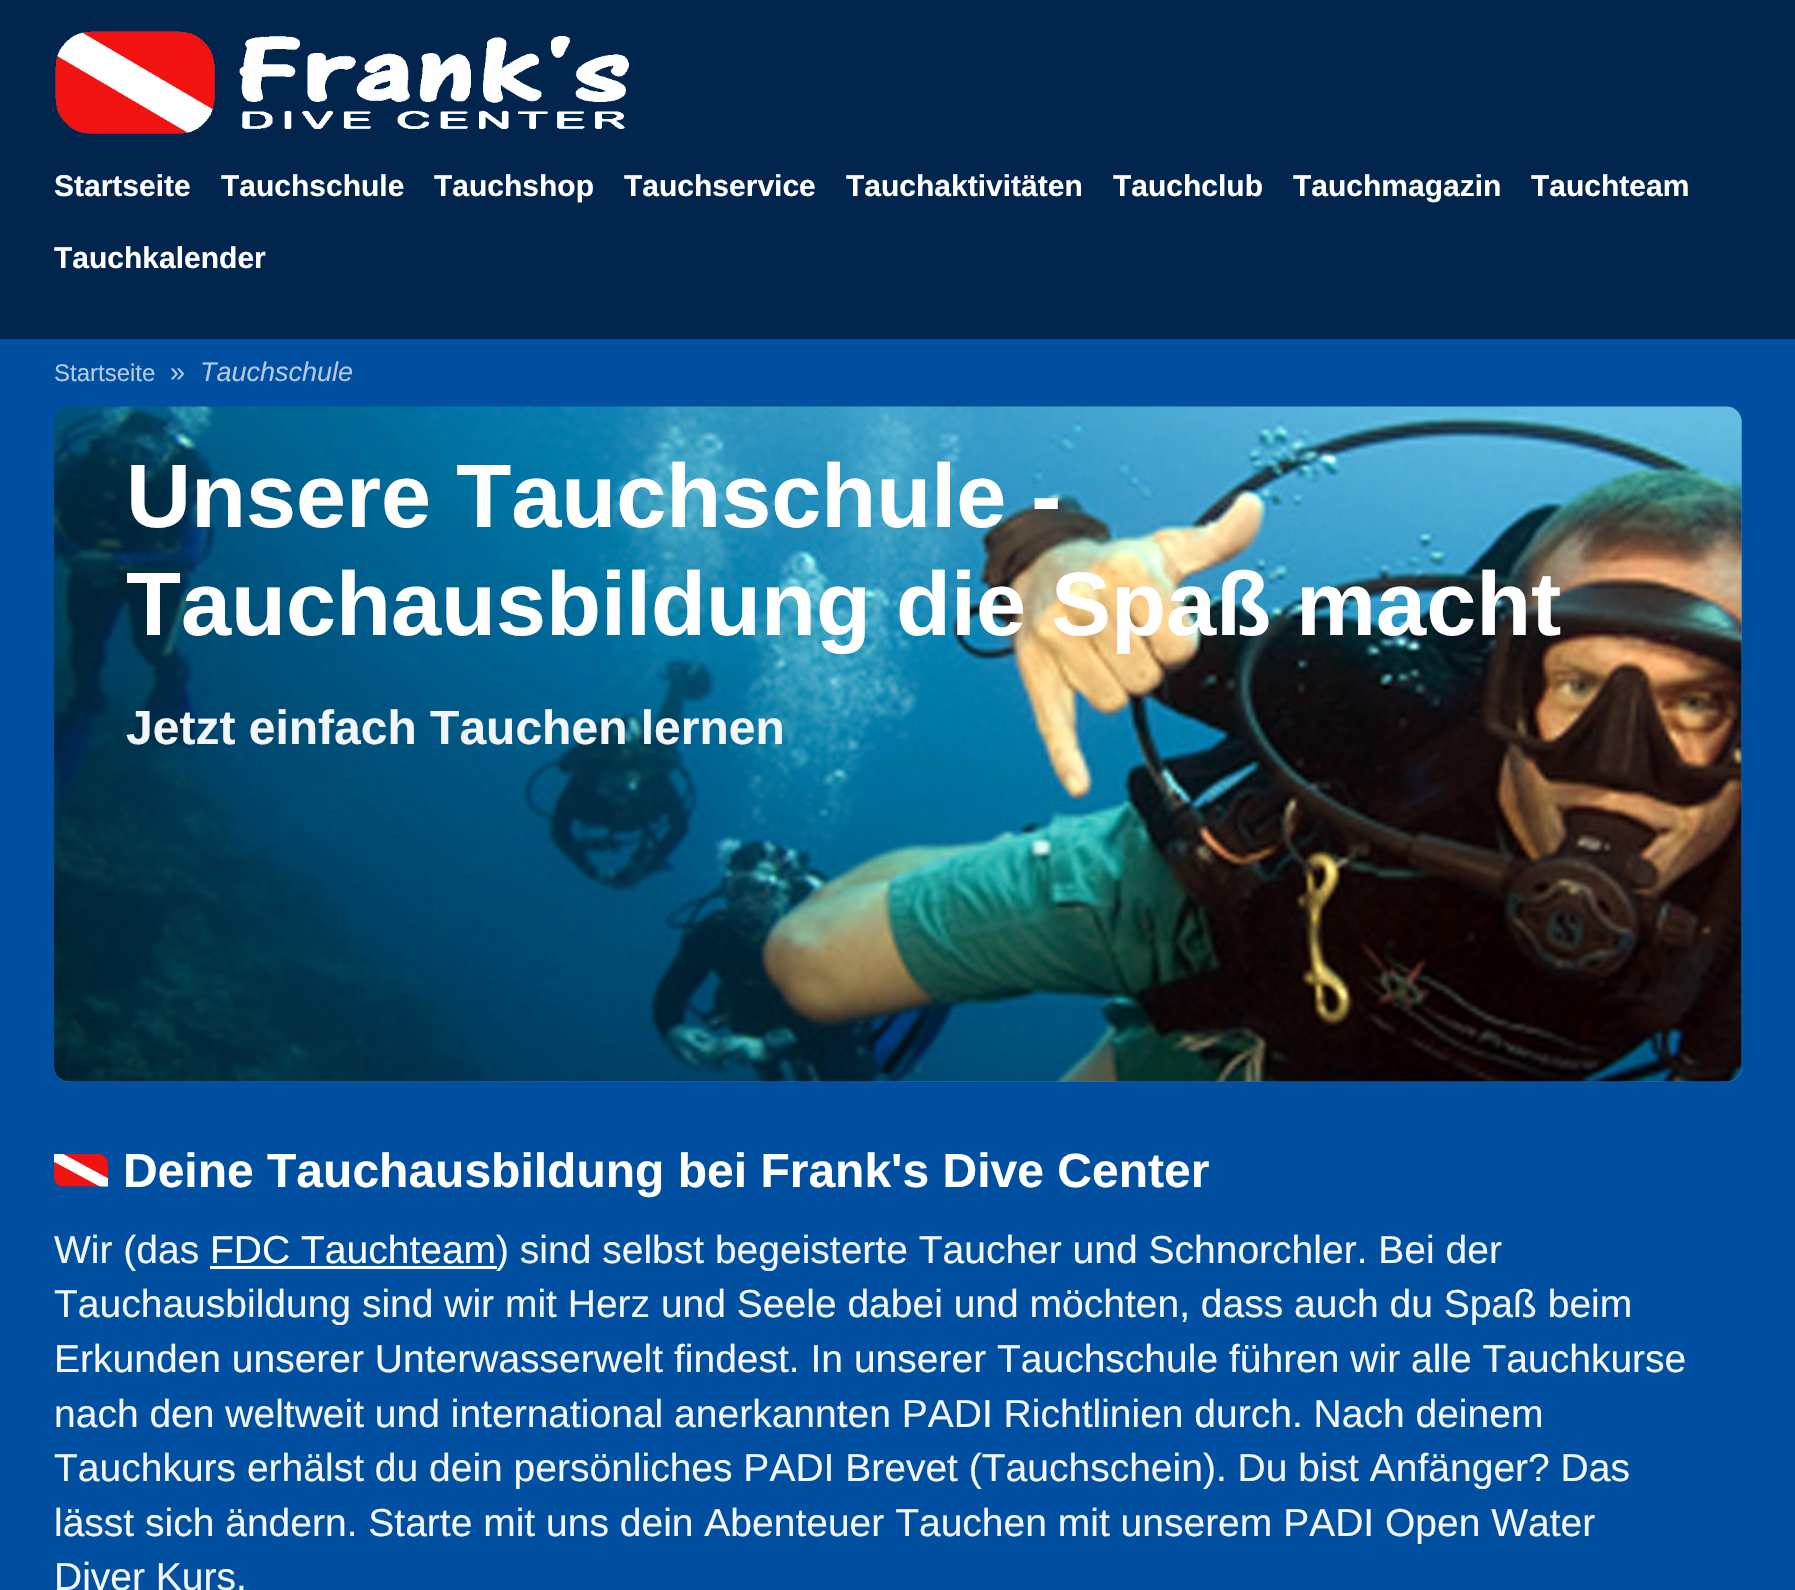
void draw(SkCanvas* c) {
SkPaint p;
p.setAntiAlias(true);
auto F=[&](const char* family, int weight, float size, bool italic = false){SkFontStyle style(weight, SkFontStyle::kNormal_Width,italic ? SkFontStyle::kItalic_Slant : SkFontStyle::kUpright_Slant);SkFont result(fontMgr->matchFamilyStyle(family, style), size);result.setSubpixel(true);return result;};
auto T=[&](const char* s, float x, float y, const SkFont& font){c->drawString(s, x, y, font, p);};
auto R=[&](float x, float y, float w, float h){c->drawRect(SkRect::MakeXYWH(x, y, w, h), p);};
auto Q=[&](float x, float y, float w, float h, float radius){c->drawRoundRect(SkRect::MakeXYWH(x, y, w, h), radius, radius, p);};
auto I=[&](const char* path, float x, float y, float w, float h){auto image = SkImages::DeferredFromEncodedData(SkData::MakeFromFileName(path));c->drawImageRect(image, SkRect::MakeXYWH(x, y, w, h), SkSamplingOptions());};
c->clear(0xff014fa1);
p.setColor(0xff01254d);
R(0,0,1795,339);
I("1.png",55,31,574,103);
auto f1 = F("Liberation Sans",700,30);
p.setColor(0xffffffff);
T("Startseite",54,196,f1);
T("Tauchschule",221,196,f1);
T("Tauchshop",434,196,f1);
T("Tauchservice",624,196,f1);
T("Tauchaktivitäten",846,196,f1);
T("Tauchclub",1113,196,f1);
T("Tauchmagazin",1293,196,f1);
T("Tauchteam",1531,196,f1);
T("Tauchkalender",54,268,f1);
auto f2 = F("Liberation Sans",400,24);
p.setColor(0xffb3cae3);
T("Startseite",54,381,f2);
auto f3 = F("Liberation Sans",400,27);
T("»",170,381,f3);
auto f4 = F("Liberation Sans",400,27,true);
T("Tauchschule",200,381,f4);
p.setColor(0xff3473b3);
Q(54,407,1688,675,15);
I("2.png",54,406,1688,676);
auto f5 = F("Liberation Sans",700,90);
p.setColor(0xffffffff);
T("Unsere Tauchschule -",126,527,f5);
T("Tauchausbildung die Spaß macht",126,635,f5);
auto f6 = F("Liberation Sans",700,48);
p.setColor(0xfff2f6f8);
T("Jetzt einfach Tauchen lernen",126,744,f6);
I("3.png",54,1154,54,33);
p.setColor(0xffffffff);
T("Deine Tauchausbildung bei Frank's Dive Center",123,1187,f6);
auto f7 = F("Liberation Sans",400,39);
p.setColor(0xfff2f6f8);
T("Wir (das",54,1263,f7);
p.setColor(0xffffffff);
T("FDC Tauchteam",210,1263,f7);
R(210,1266,287,3);
p.setColor(0xfff2f6f8);
T(") sind selbst begeisterte Taucher und Schnorchler. Bei der",496,1263,f7);
T("Tauchausbildung sind wir mit Herz und Seele dabei und möchten, dass auch du Spaß beim",54,1317,f7);
T("Erkunden unserer Unterwasserwelt findest. In unserer Tauchschule führen wir alle Tauchkurse",54,1372,f7);
T("nach den weltweit und international anerkannten PADI Richtlinien durch. Nach deinem",54,1427,f7);
T("Tauchkurs erhälst du dein persönliches PADI Brevet (Tauchschein). Du bist Anfänger? Das",54,1481,f7);
T("lässt sich ändern. Starte mit uns dein Abenteuer Tauchen mit unserem PADI Open Water",54,1536,f7);
T("Diver Kurs.",54,1590,f7);
}
